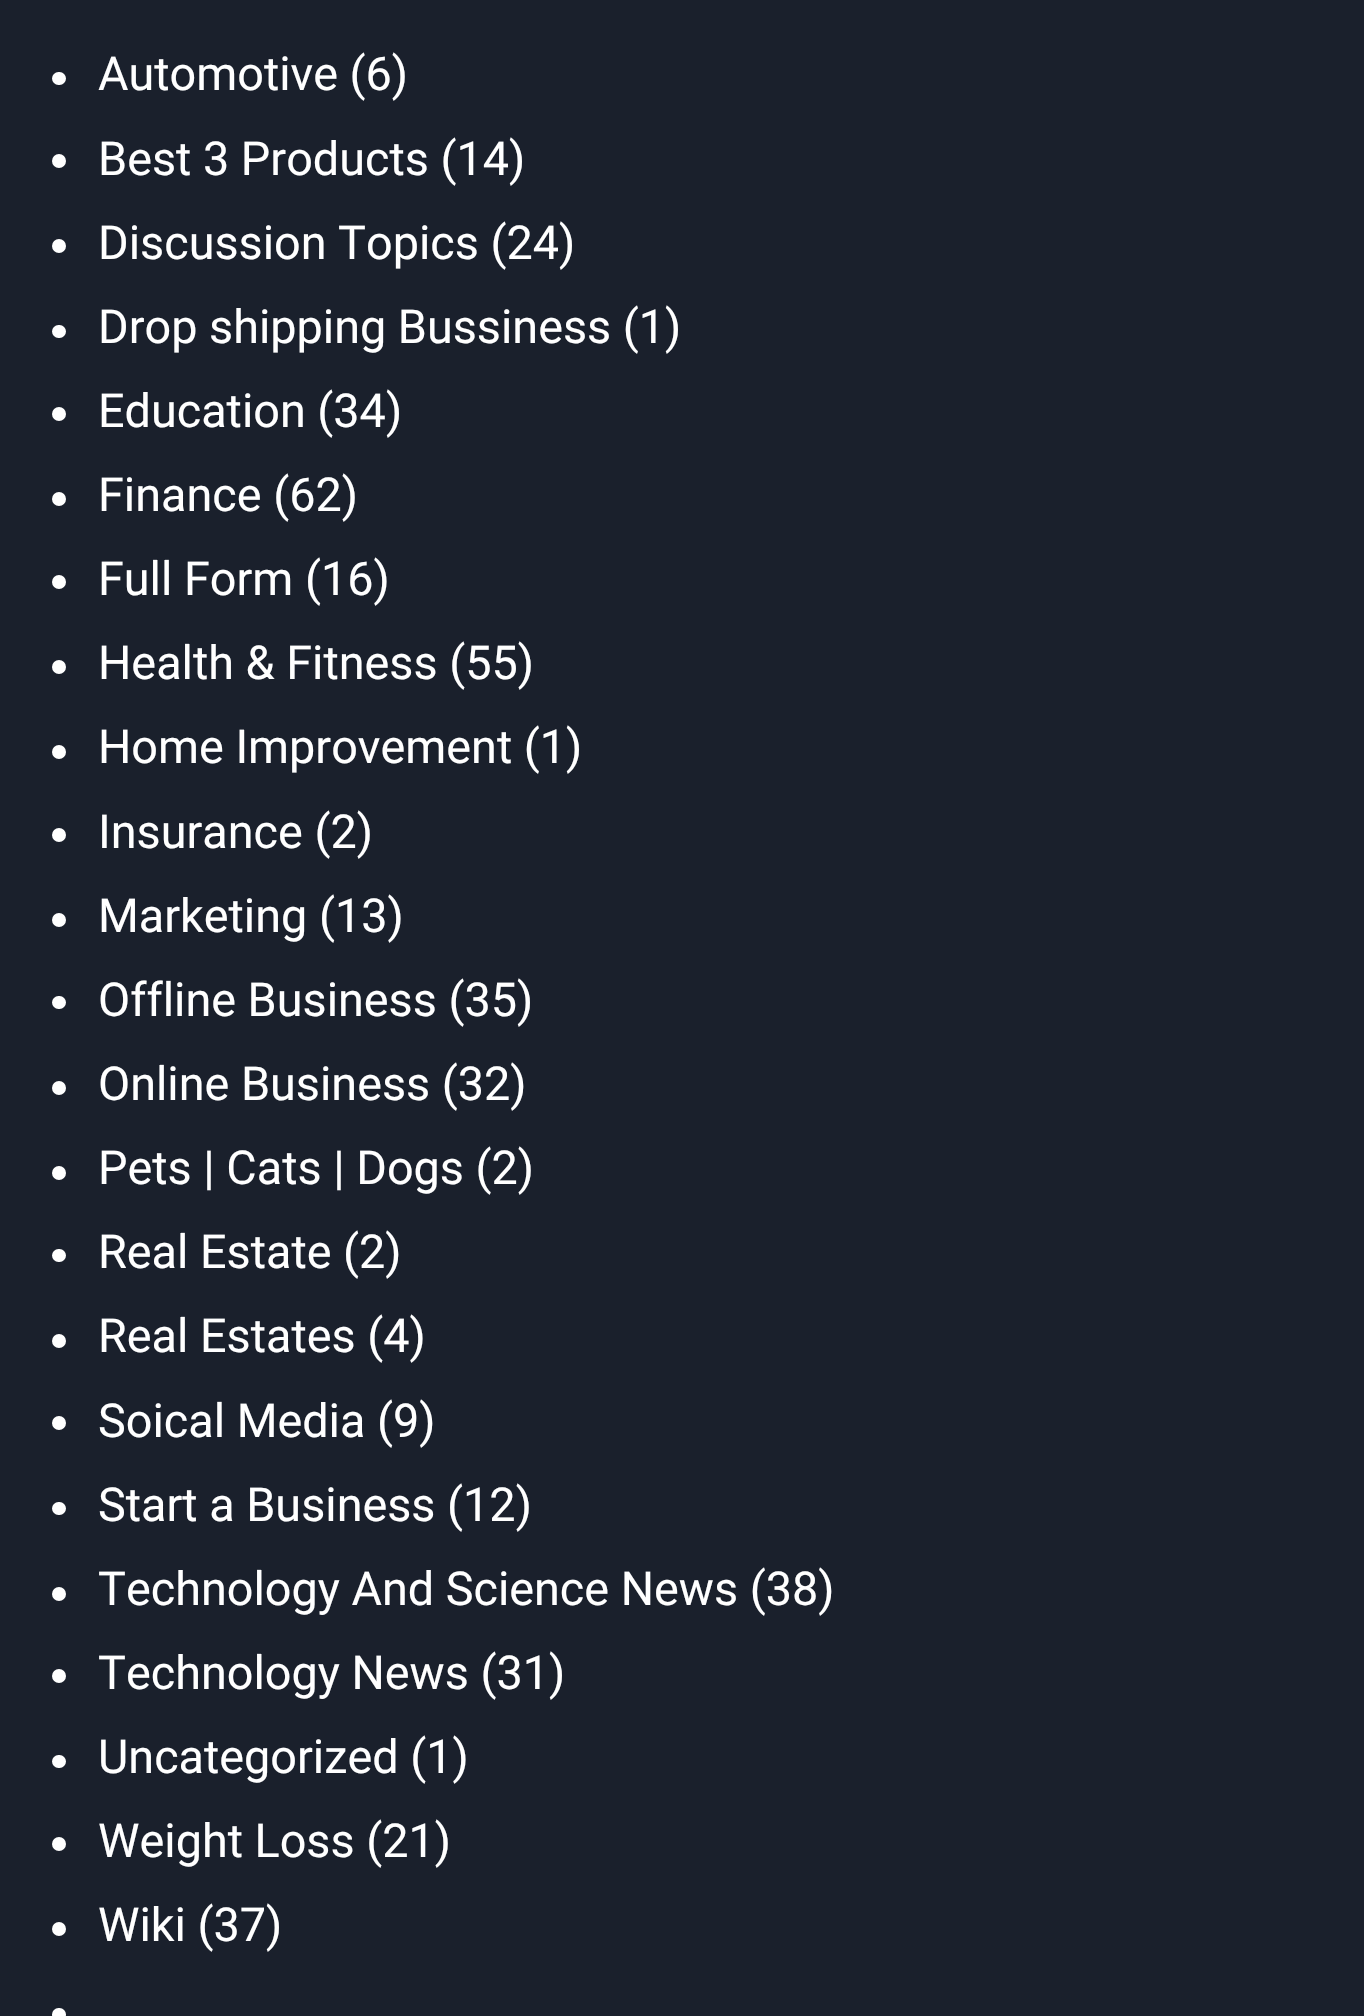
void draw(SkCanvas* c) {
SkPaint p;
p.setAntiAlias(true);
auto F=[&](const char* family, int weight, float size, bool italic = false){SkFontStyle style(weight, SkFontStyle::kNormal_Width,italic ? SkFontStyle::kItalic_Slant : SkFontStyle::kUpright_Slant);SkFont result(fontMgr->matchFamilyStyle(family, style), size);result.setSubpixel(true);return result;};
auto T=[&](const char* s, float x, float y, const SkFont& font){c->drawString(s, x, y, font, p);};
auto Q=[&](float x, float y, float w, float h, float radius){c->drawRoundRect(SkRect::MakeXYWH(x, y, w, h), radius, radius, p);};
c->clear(0xff1a202c);
p.setColor(0xffffffff);
Q(52,72,14,13,6.5);
auto f1 = F("Roboto",400,46.75);
T("Automotive (6)",98,90,f1);
c->drawCircle(59,161,7,p);
T("Best 3 Products (14)",98,175,f1);
c->drawCircle(59,246,7,p);
T("Discussion Topics (24)",98,259,f1);
Q(52,325,14,13,6.5);
T("Drop shipping Bussiness (1)",98,343,f1);
c->drawCircle(59,414,7,p);
T("Education (34)",98,427,f1);
c->drawCircle(59,499,7,p);
T("Finance (62)",98,511,f1);
c->drawCircle(59,582,7,p);
T("Full Form (16)",98,595,f1);
c->drawCircle(59,667,7,p);
T("Health & Fitness (55)",98,679,f1);
c->drawCircle(59,752,7,p);
T("Home Improvement (1)",98,763,f1);
c->drawCircle(59,835,7,p);
T("Insurance (2)",98,848,f1);
c->drawCircle(59,920,7,p);
T("Marketing (13)",98,932,f1);
Q(52,996,14,13,6.5);
T("Offline Business (35)",98,1016,f1);
c->drawCircle(59,1088,7,p);
T("Online Business (32)",98,1100,f1);
c->drawCircle(59,1173,7,p);
T("Pets | Cats | Dogs (2)",98,1184,f1);
Q(52,1249,14,13,6.5);
T("Real Estate (2)",98,1268,f1);
c->drawCircle(59,1341,7,p);
T("Real Estates (4)",98,1352,f1);
c->drawCircle(59,1423,7,p);
T("Soical Media (9)",98,1437,f1);
Q(52,1502,14,13,6.5);
T("Start a Business (12)",98,1521,f1);
c->drawCircle(59,1594,7,p);
T("Technology And Science News (38)",98,1605,f1);
c->drawCircle(59,1676,7,p);
T("Technology News (31)",98,1689,f1);
Q(52,1755,14,13,6.5);
T("Uncategorized (1)",98,1773,f1);
c->drawCircle(59,1844,7,p);
T("Weight Loss (21)",98,1857,f1);
c->drawCircle(59,1929,7,p);
T("Wiki (37)",98,1941,f1);
Q(52,2008,14,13,6.5);
}
